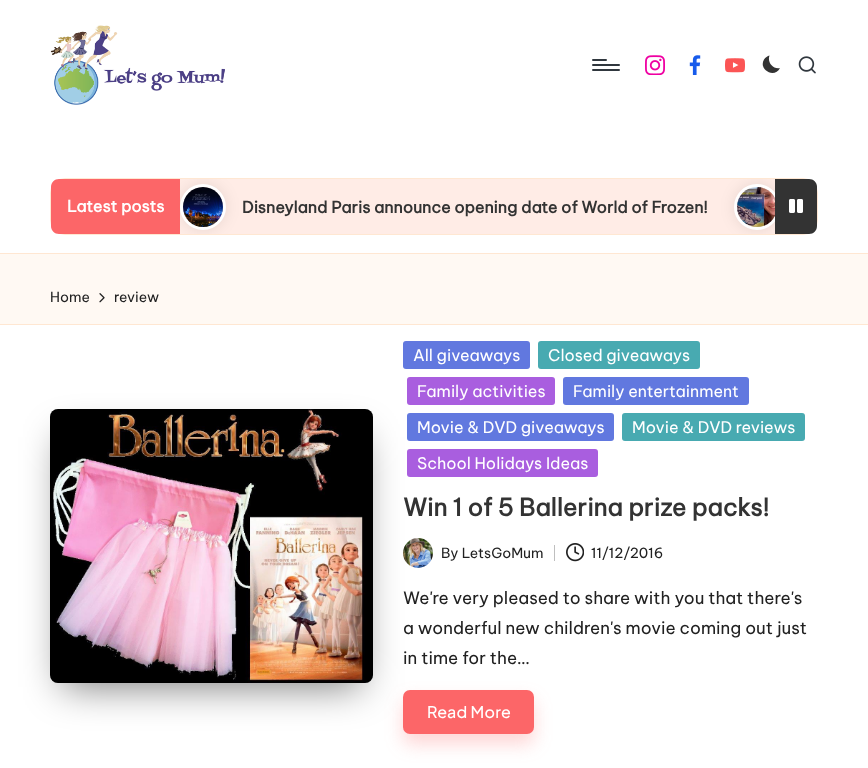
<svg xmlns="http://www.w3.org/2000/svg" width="868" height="768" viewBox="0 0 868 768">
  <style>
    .t1 { font: bold 16px Be Vietnam Pro; fill: #fff; }
    .t2 { font: bold 16px Be Vietnam Pro; fill: #333; }
    .t3 { font: 14px Be Vietnam Pro; fill: #212121; }
    .t4 { font: 16px Be Vietnam Pro; fill: #fff; }
    .t5 { font: bold 24px Be Vietnam Pro; fill: #333; }
    .t6 { font: 17px Be Vietnam Pro; fill: #212121; }
    .t7 { font: 500 16px Plus Jakarta Sans; letter-spacing: 0.25px; fill: #fff; }
  </style>
  <defs>
    <clipPath id="clip1"><rect x="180" y="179" width="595" height="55"/></clipPath>
    <clipPath id="clip2"><rect x="180" y="179" width="595" height="55"/></clipPath>
  </defs>
  <rect width="100%" height="100%" fill="#fff"/>
  <image x="50" y="25" width="175" height="80" href="images/1.png"/>
  <rect x="592" y="64" width="28" height="2" rx="1" fill="#30373e"/>
  <rect x="592" y="59" width="15" height="2" rx="1" fill="#30373e"/>
  <rect x="592" y="69" width="28" height="2" rx="1" fill="#30373e"/>
  <image x="645" y="55" width="20" height="20" href="images/2.png"/>
  <image x="689" y="55" width="12" height="20" href="images/3.png"/>
  <image x="725" y="58" width="20" height="15" href="images/4.png"/>
  <path d="M780 68C773 69.5 767 62.5 769.5 55.5C767.5 56 765.5 57.5 764 59.5C758 70.5 775 78.5 780 68Z" fill="#333"/>
  <image x="798" y="56" width="18" height="18" href="images/5.png"/>
  <rect x="50.5" y="178.5" width="767" height="56" rx="14.5" fill="none" stroke="#ffe7d2"/>
  <path d="M59 179H180V234H59C54.5 234 51 230.5 51 226V187C51 182.5 54.5 179 59 179Z" fill="#fc6668"/>
  <text x="67" y="212" class="t1">Latest posts</text>
  <rect x="180" y="179" width="595" height="55" fill="#ffece6"/>
  <rect x="0" y="253" width="868" height="1" fill="#ffe7d2"/>
  <g clip-path="url(#clip1)">
    <rect x="180" y="184" width="46" height="46" rx="23" fill="#00000017" filter="blur(7.5px)"/>
  </g>
  <circle cx="203" cy="207" r="21.5" fill="none" stroke="#fff" stroke-width="3"/>
  <image x="183" y="187" width="40" height="40" href="images/6.png"/>
  <text x="242" y="213" class="t2">Disneyland Paris announce opening date of World of Frozen!</text>
  <path d="M775 179H809C813.5 179 817 182.5 817 187V226C817 230.5 813.5 234 809 234H775Z" fill="#333"/>
  <image x="789" y="199" width="14" height="14" href="images/8.png"/>
  <g clip-path="url(#clip1)">
    <rect x="734" y="184" width="46" height="46" rx="23" fill="#00000017" filter="blur(7.5px)"/>
  </g>
  <g clip-path="url(#clip2)">
    <circle cx="757" cy="207" r="21.5" fill="none" stroke="#fff" stroke-width="3"/>
  </g>
  <image x="737" y="187" width="38" height="40" href="images/7.png"/>
  <rect x="0" y="254" width="868" height="70" fill="#fff9f3"/>
  <rect x="0" y="324" width="868" height="1" fill="#ffe7d2"/>
  <text x="50" y="302" class="t3">Home</text>
  <image x="99" y="293" width="6" height="10" href="images/9.png"/>
  <text x="114" y="302" class="t3">review</text>
  <rect x="407" y="377" width="148" height="28" rx="3" fill="#a95edf"/>
  <rect x="407" y="413" width="207" height="28" rx="3" fill="#6178df"/>
  <rect x="407" y="449" width="191" height="28" rx="3" fill="#a95edf"/>
  <image x="403" y="538" width="30" height="30" href="images/11.png"/>
  <rect x="62" y="437" width="299" height="250" fill="#00000080" filter="blur(19px)"/>
  <rect x="50" y="409" width="323" height="274" rx="8" fill="#0000002e"/>
  <image x="50" y="409" width="323" height="274" href="images/10.png"/>
  <rect x="403" y="341" width="127" height="28" rx="3" fill="#6178df"/>
  <text x="413" y="361" class="t4">All giveaways</text>
  <rect x="538" y="341" width="162" height="28" rx="3" fill="#48aab1"/>
  <text x="548" y="361" class="t4">Closed giveaways</text>
  <text x="417" y="397" class="t4">Family activities</text>
  <rect x="563" y="377" width="186" height="28" rx="3" fill="#6178df"/>
  <text x="573" y="397" class="t4">Family entertainment</text>
  <text x="417" y="433" class="t4">Movie &amp; DVD giveaways</text>
  <rect x="622" y="413" width="183" height="28" rx="3" fill="#48aab1"/>
  <text x="632" y="433" class="t4">Movie &amp; DVD reviews</text>
  <text x="417" y="469" class="t4">School Holidays Ideas</text>
  <text x="403" y="516" class="t5">Win 1 of 5 Ballerina prize packs!</text>
  <text x="441" y="558" class="t3">By LetsGoMum</text>
  <rect x="554" y="545" width="1" height="16" fill="#bfbfbf"/>
  <image x="566" y="543" width="18" height="19" href="images/12.png"/>
  <text x="591" y="558" class="t3">11/12/2016</text>
  <text x="403" y="604" class="t6">We're very pleased to share with you that there's</text>
  <text x="403" y="634" class="t6">a wonderful new children's movie coming out just</text>
  <text x="403" y="664" class="t6">in time for the…</text>
  <rect x="403" y="700" width="131" height="44" rx="7" fill="#fc666845" filter="blur(9px)"/>
  <rect x="403" y="690" width="131" height="44" rx="7" fill="#fc6668"/>
  <text x="427" y="718" class="t7">Read More</text>
</svg>
